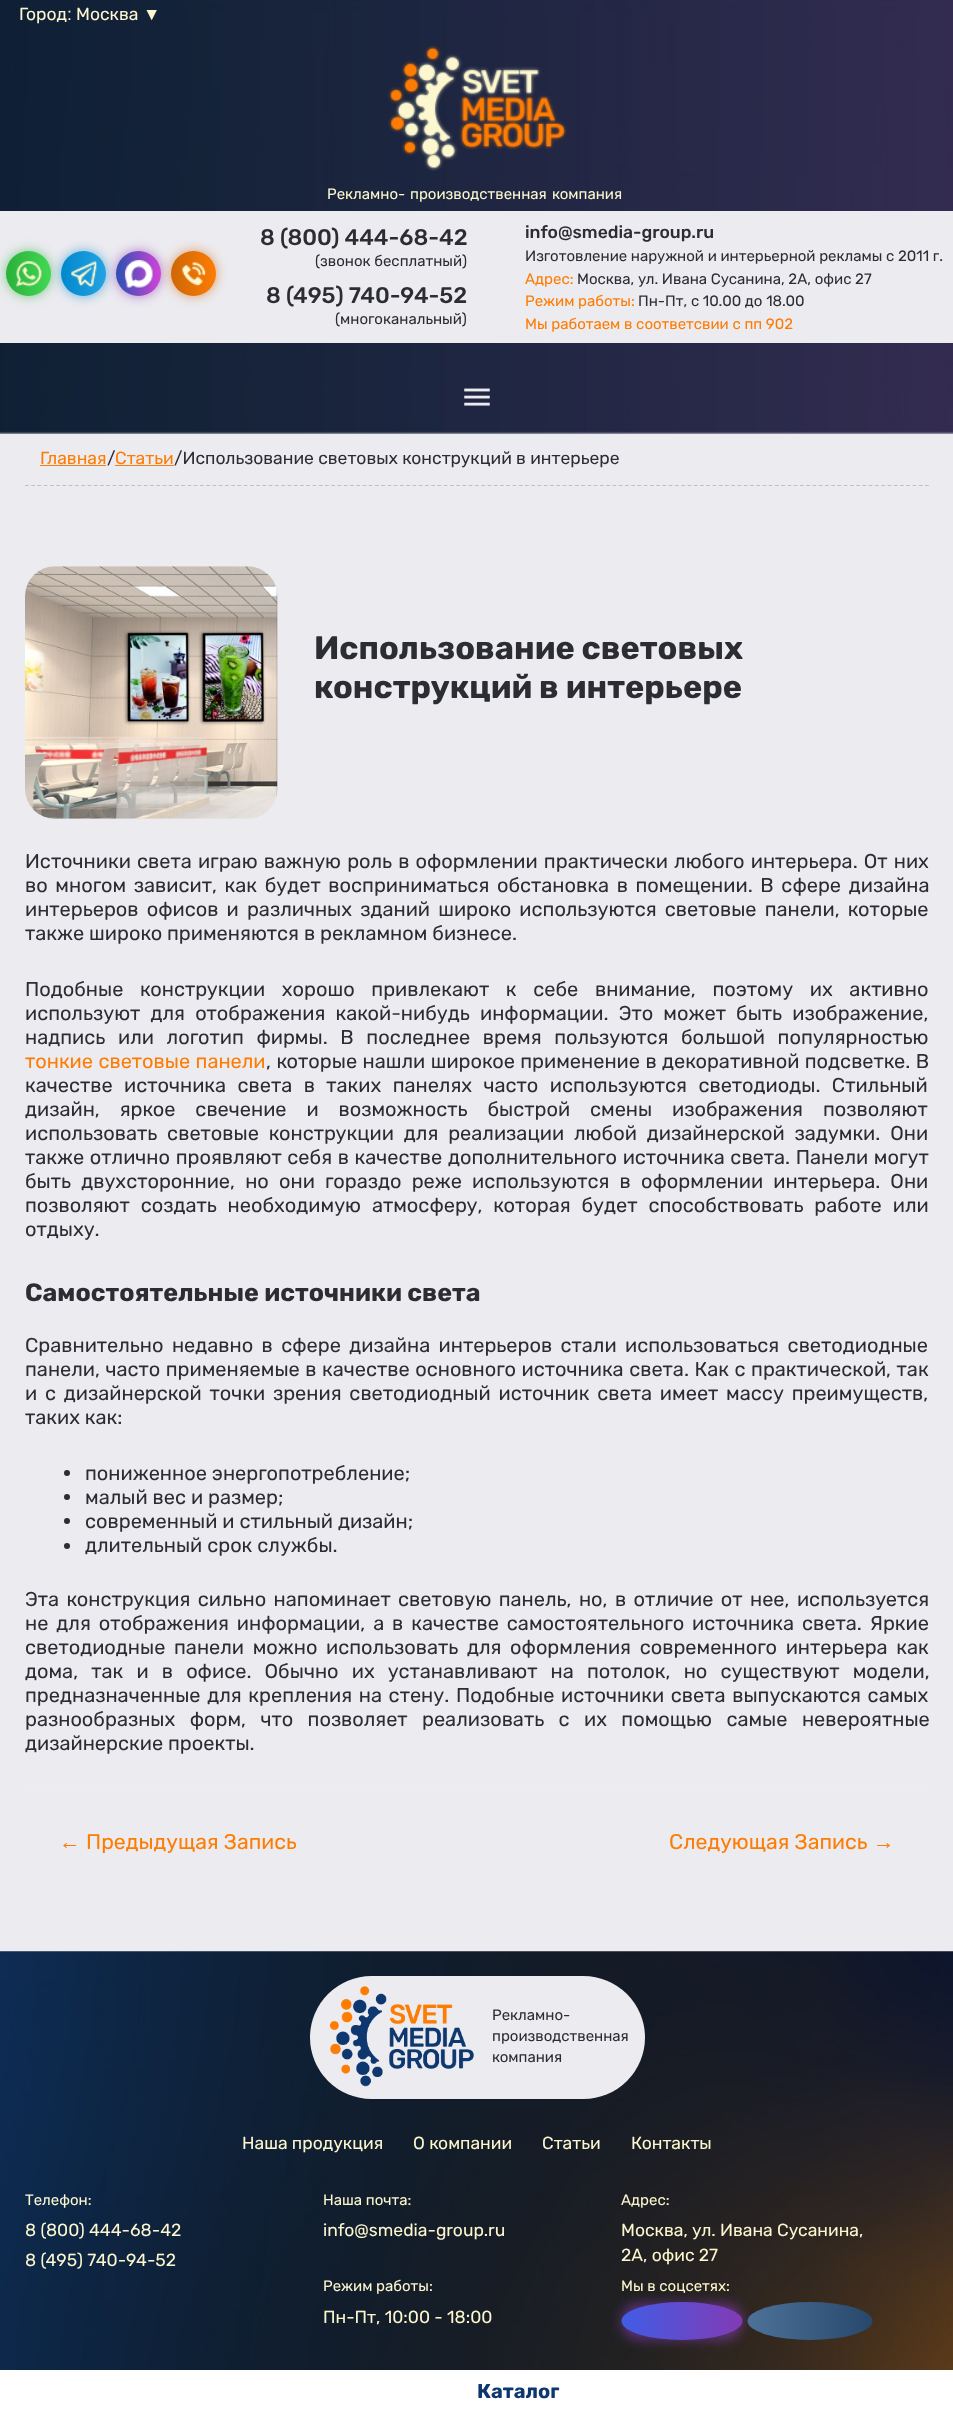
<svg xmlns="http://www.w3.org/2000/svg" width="953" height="2415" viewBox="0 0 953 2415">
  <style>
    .t1 { font: 17.5px Rubik; fill: #fcf7cf; }
    .t2 { font: 17.5px Liberation Sans; fill: #fcf7cf; }
    .t3 { font: 15px Rubik; fill: #fcf7cf; }
    .t4 { font: 500 22.5px Rubik; fill: #2c2c33; }
    .t5 { font: 15px Rubik; fill: #2c2c33; }
    .t6 { font: 500 17.5px Rubik; fill: #2c2c33; }
    .t7 { font: 15px Rubik; fill: #fd7c03; }
    .t8 { font: 17.5px Rubik; fill: #fd7c03; }
    .t9 { font: 17.5px Rubik; fill: #2c2c33; }
    .t10 { font: bold 32.5px Rubik; fill: #2c2c33; }
    .t11 { font: 20px Rubik; fill: #2c2c33; }
    .t12 { font: 20px Rubik; fill: #fd7c03; }
    .t13 { font: bold 25px Rubik; fill: #2c2c33; }
    .t14 { font: 21.25px Liberation Sans; fill: #fd7c03; }
    .t15 { font: 21.25px Rubik; fill: #fd7c03; }
    .t16 { font: bold 20px Rubik; fill: #0e376f; }
  </style>
  <defs>
    <linearGradient id="g1" gradientUnits="userSpaceOnUse" x1="6.2" y1="274" x2="51" y2="274"><stop offset="0" stop-color="#2ab13a"/><stop offset="1" stop-color="#43d854"/></linearGradient>
    <linearGradient id="g2" gradientUnits="userSpaceOnUse" x1="61" y1="274" x2="106" y2="274"><stop offset="0" stop-color="#08c"/><stop offset="1" stop-color="#24a3e3"/></linearGradient>
    <linearGradient id="g3" gradientUnits="userSpaceOnUse" x1="116" y1="274" x2="161" y2="274"><stop offset="0" stop-color="#2a51b1"/><stop offset="1" stop-color="#d443d8"/></linearGradient>
    <linearGradient id="g4" gradientUnits="userSpaceOnUse" x1="171" y1="274" x2="216" y2="274"><stop offset="0" stop-color="#ce6706"/><stop offset="1" stop-color="#fd7c03"/></linearGradient>
    <linearGradient id="g5" gradientUnits="userSpaceOnUse" x1="621" y1="2321" x2="743" y2="2321"><stop offset="0" stop-color="#405de6"/><stop offset="1" stop-color="#833ab4"/></linearGradient>
    <linearGradient id="g6" gradientUnits="userSpaceOnUse" x1="748" y1="2321" x2="873" y2="2321"><stop offset="0" stop-color="#4d7198"/><stop offset="1" stop-color="#27486b"/></linearGradient>
  </defs>
  <rect width="100%" height="100%" fill="#ecebf0"/>
  <image x="0" y="0" width="953" height="434" href="images/1.png"/>
  <text x="19" y="20" class="t1">Город</text>
  <text x="67" y="20" class="t2">:</text>
  <text x="76" y="20" class="t1">Москва</text>
  <text x="143" y="20" class="t2">▼</text>
  <image x="387" y="45" width="180" height="126" href="images/2.png"/>
  <text x="327" y="199" class="t3">Рекламно-</text>
  <text x="410" y="199" class="t3">производственная</text>
  <text x="552" y="199" class="t3">компания</text>
  <rect x="0" y="211" width="953" height="132" fill="#ecebf0"/>
  <rect x="6" y="251" width="45" height="45" rx="22.5" fill="#2ab13899" filter="blur(6px)"/>
  <circle cx="28.5" cy="273.5" r="22.5" fill="url(#g1)"/>
  <image x="16" y="261" width="26" height="26" href="images/3.png"/>
  <rect x="61" y="251" width="45" height="45" rx="22.5" fill="#0088cc99" filter="blur(6px)"/>
  <circle cx="83.5" cy="273.5" r="22.5" fill="url(#g2)"/>
  <image x="71" y="261" width="26" height="26" href="images/4.png"/>
  <rect x="116" y="251" width="45" height="45" rx="22.5" fill="#882ab199" filter="blur(6px)"/>
  <circle cx="138.5" cy="273.5" r="22.5" fill="url(#g3)"/>
  <image x="125" y="260" width="28" height="28" href="images/5.png"/>
  <rect x="171" y="251" width="45" height="45" rx="22.5" fill="#ce670699" filter="blur(6px)"/>
  <circle cx="193.5" cy="273.5" r="22.5" fill="url(#g4)"/>
  <image x="182" y="262" width="24" height="24" href="images/6.png"/>
  <text x="260" y="245" class="t4">8 (800) 444-68-42</text>
  <text x="315" y="266" class="t5">(звонок бесплатный)</text>
  <text x="266" y="303" class="t4">8 (495) 740-94-52</text>
  <text x="335" y="324" class="t5">(многоканальный)</text>
  <text x="525" y="238" class="t6">info@smedia-group.ru</text>
  <text x="525" y="261" class="t5">Изготовление наружной и интерьерной рекламы с 2011 г.</text>
  <text x="525" y="284" class="t7">Адрес:</text>
  <text x="577" y="284" class="t5">Москва, ул. Ивана Сусанина, 2А, офис 27</text>
  <text x="525" y="306" class="t7">Режим работы:</text>
  <text x="638" y="306" class="t5">Пн-Пт, с 10.00 до 18.00</text>
  <text x="525" y="329" class="t7">Мы работаем в соответсвии с пп 902</text>
  <image x="464" y="388" width="26" height="18" href="images/7.png"/>
  <path d="M25 485.5H929" fill="none" stroke="#c1c1c1" stroke-width="1.2" stroke-dasharray="3.75 2.5"/>
  <text x="40" y="464" class="t8">Главная</text>
  <rect x="40" y="465" width="66" height="1" fill="#fd7c03"/>
  <text x="107" y="464" class="t9">/</text>
  <text x="115" y="464" class="t8">Статьи</text>
  <rect x="115" y="465" width="59" height="1" fill="#fd7c03"/>
  <text x="174" y="464" class="t9">/Использование световых конструкций в интерьере</text>
  <image x="25" y="566" width="253" height="253" href="images/8.png"/>
  <text x="314" y="659" class="t10">Использование световых</text>
  <text x="314" y="698" class="t10">конструкций в интерьере</text>
  <text x="25" y="868" word-spacing="1.25" class="t11">Источники света играю важную роль в оформлении практически любого интерьера. От них</text>
  <text x="25" y="892" word-spacing="2.75" class="t11">во многом зависит, как будет восприниматься обстановка в помещении. В сфере дизайна</text>
  <text x="25" y="916" word-spacing="3.25" class="t11">интерьеров офисов и различных зданий широко используются световые панели, которые</text>
  <text x="25" y="940" class="t11">также широко применяются в рекламном бизнесе.</text>
  <text x="25" y="996" word-spacing="11.75" class="t11">Подобные конструкции хорошо привлекают к себе внимание, поэтому их активно</text>
  <text x="25" y="1020" word-spacing="5.25" class="t11">используют для отображения какой-нибудь информации. Это может быть изображение,</text>
  <text x="25" y="1044" word-spacing="7.75" class="t11">надпись или логотип фирмы. В последнее время пользуются большой популярностью</text>
  <text x="25" y="1068" word-spacing="0.5" class="t12">тонкие световые панели</text>
  <text x="266" y="1068" word-spacing="0.5" class="t11">, которые нашли широкое применение в декоративной подсветке. В</text>
  <text x="25" y="1092" word-spacing="6.5" class="t11">качестве источника света в таких панелях часто используются светодиоды. Стильный</text>
  <text x="25" y="1116" word-spacing="15" class="t11">дизайн, яркое свечение и возможность быстрой смены изображения позволяют</text>
  <text x="25" y="1140" word-spacing="5" class="t11">использовать световые конструкции для реализации любой дизайнерской задумки. Они</text>
  <text x="25" y="1164" word-spacing="0.75" class="t11">также отлично проявляют себя в качестве дополнительного источника света. Панели могут</text>
  <text x="25" y="1188" word-spacing="5.25" class="t11">быть двухсторонние, но они гораздо реже используются в оформлении интерьера. Они</text>
  <text x="25" y="1212" word-spacing="6" class="t11">позволяют создать необходимую атмосферу, которая будет способствовать работе или</text>
  <text x="25" y="1236" class="t11">отдыху.</text>
  <text x="25" y="1301" class="t13">Самостоятельные источники света</text>
  <text x="25" y="1352" word-spacing="3.5" class="t11">Сравнительно недавно в сфере дизайна интерьеров стали использоваться светодиодные</text>
  <text x="25" y="1376" word-spacing="0.6" class="t11">панели, часто применяемые в качестве основного источника света. Как с практической, так</text>
  <text x="25" y="1400" word-spacing="2.9" class="t11">и с дизайнерской точки зрения светодиодный источник света имеет массу преимуществ,</text>
  <text x="25" y="1424" class="t11">таких как:</text>
  <circle cx="67" cy="1473" r="3" fill="#2c2c33"/>
  <text x="85" y="1480" class="t11">пониженное энергопотребление;</text>
  <circle cx="67" cy="1497" r="3" fill="#2c2c33"/>
  <text x="85" y="1504" class="t11">малый вес и размер;</text>
  <circle cx="67" cy="1521" r="3" fill="#2c2c33"/>
  <text x="85" y="1528" class="t11">современный и стильный дизайн;</text>
  <circle cx="67" cy="1546" r="3" fill="#2c2c33"/>
  <text x="85" y="1552" class="t11">длительный срок службы.</text>
  <text x="25" y="1606" word-spacing="2.5" class="t11">Эта конструкция сильно напоминает световую панель, но, в отличие от нее, используется</text>
  <text x="25" y="1630" word-spacing="3" class="t11">не для отображения информации, а в качестве самостоятельного источника света. Яркие</text>
  <text x="25" y="1654" word-spacing="3.75" class="t11">светодиодные панели можно использовать для оформления современного интерьера как</text>
  <text x="25" y="1678" word-spacing="8.25" class="t11">дома, так и в офисе. Обычно их устанавливают на потолок, но существуют модели,</text>
  <text x="25" y="1702" word-spacing="1.75" class="t11">предназначенные для крепления на стену. Подобные источники света выпускаются самых</text>
  <text x="25" y="1726" word-spacing="9.5" class="t11">разнообразных форм, что позволяет реализовать с их помощью самые невероятные</text>
  <text x="25" y="1750" class="t11">дизайнерские проекты.</text>
  <rect x="25" y="1785" width="904" height="1" fill="#eee"/>
  <text x="59" y="1849" class="t14">←</text>
  <text x="86" y="1849" class="t15">Предыдущая Запись</text>
  <text x="669" y="1849" class="t15">Следующая Запись</text>
  <text x="873" y="1849" class="t14">→</text>
  <rect x="0" y="2370" width="953" height="45" fill="#fff"/>
  <text x="477" y="2398" class="t16">Каталог</text>
  <image x="0" y="1951" width="953" height="419" href="images/9.png"/>
  <rect x="310" y="1976" width="335" height="123" rx="61.5" fill="#ecebf0"/>
  <image x="330" y="1986" width="144" height="101" href="images/10.png"/>
  <text x="492" y="2020" class="t5">Рекламно-</text>
  <text x="492" y="2041" class="t5">производственная</text>
  <text x="492" y="2062" class="t5">компания</text>
  <text x="242" y="2149" class="t1">Наша продукция</text>
  <text x="413" y="2149" class="t1">О компании</text>
  <text x="542" y="2149" class="t1">Статьи</text>
  <text x="631" y="2149" class="t1">Контакты</text>
  <text x="25" y="2205" class="t3">Телефон:</text>
  <text x="25" y="2236" class="t1">8 (800) 444-68-42</text>
  <text x="25" y="2266" class="t1">8 (495) 740-94-52</text>
  <text x="323" y="2205" class="t3">Наша почта:</text>
  <text x="323" y="2236" class="t1">info@smedia-group.ru</text>
  <text x="621" y="2205" class="t3">Адрес:</text>
  <text x="621" y="2236" class="t1">Москва, ул. Ивана Сусанина,</text>
  <text x="621" y="2261" class="t1">2А, офис 27</text>
  <text x="323" y="2291" class="t3">Режим работы:</text>
  <text x="323" y="2323" class="t1">Пн-Пт, 10:00 - 18:00</text>
  <text x="621" y="2291" class="t3">Мы в соцсетях:</text>
  <rect x="621" y="2303" width="122" height="37" rx="18.5" fill="#833ab499" filter="blur(6px)"/>
  <ellipse cx="682" cy="2321" rx="60.5" ry="19" fill="url(#g5)"/>
  <ellipse cx="810" cy="2321" rx="62.5" ry="19" fill="url(#g6)"/>
</svg>
